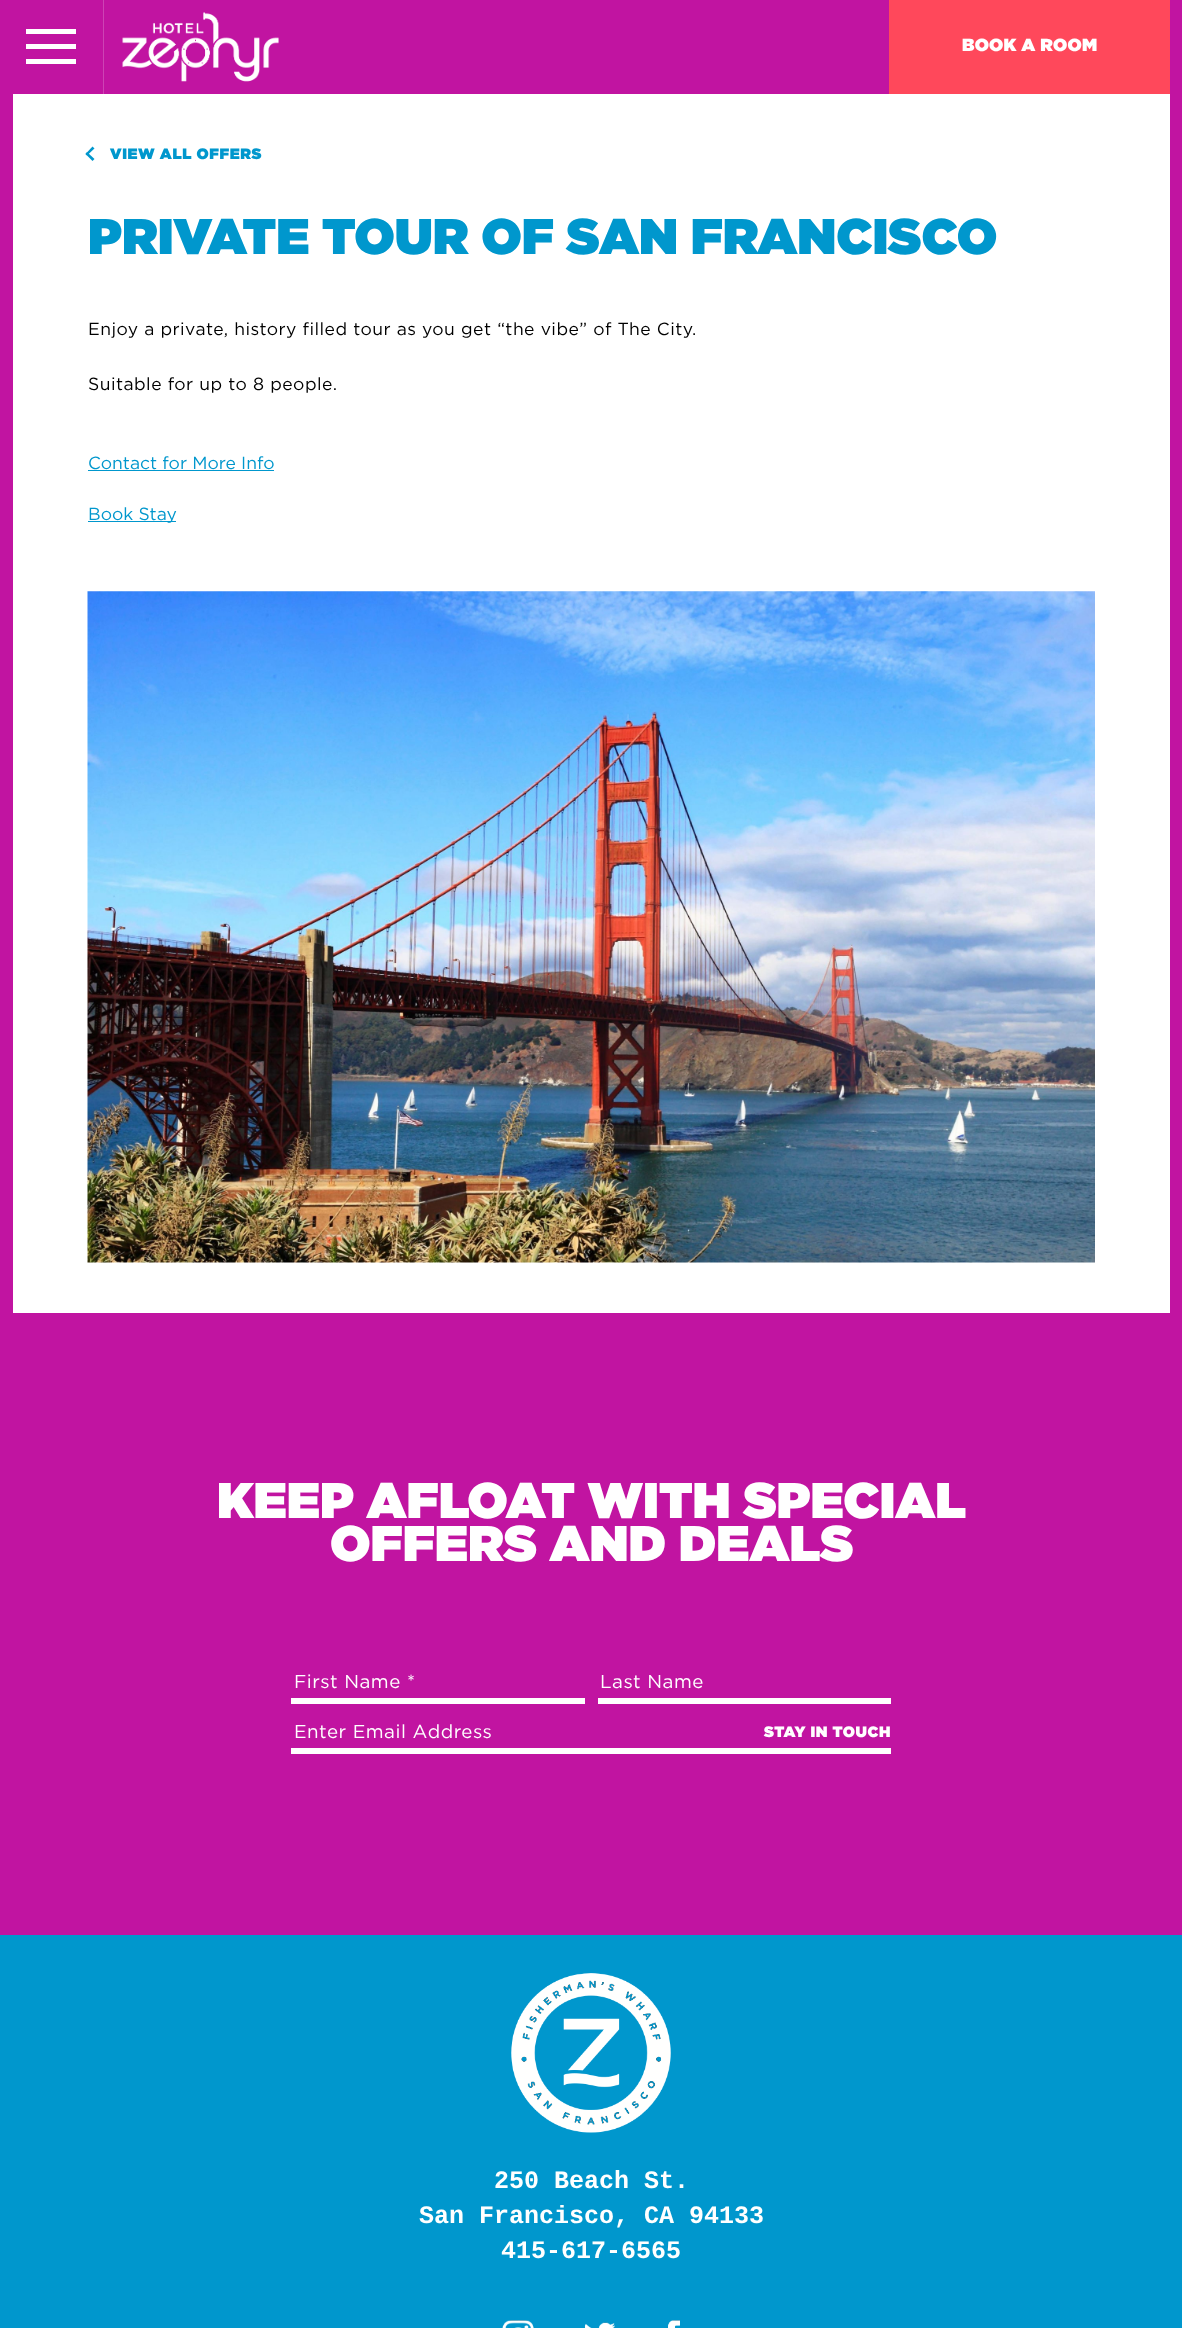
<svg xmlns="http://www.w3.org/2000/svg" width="1182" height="2328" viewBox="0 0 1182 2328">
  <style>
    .t1 { font: 17.5px Gotham; letter-spacing: 0.25px; fill: #fff; }
    .t2 { font: 15px Gotham; letter-spacing: 0.6px; fill: #0097cd; }
    .t3 { font: 50px Gotham; fill: #0097cd; }
    .t4 { font: 17.5px 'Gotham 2'; letter-spacing: 0.45px; fill: #000; }
    .t5 { font: 17.5px 'Gotham 2'; fill: #0097cd; }
    .t6 { font: 50px Gotham; fill: #fff; }
    .t7 { font: 18.75px 'Gotham 2'; letter-spacing: 0.5px; fill: #fff; }
    .t8 { font: 15px Gotham; letter-spacing: 0.6px; fill: #fff; }
    .t9 { font: bold 25px Liberation Mono; fill: #fff; }
  </style>
  <rect width="100%" height="100%" fill="#c114a1"/>
  <rect x="103" y="0" width="1" height="94" fill="#cd43b4"/>
  <rect x="26" y="44" width="50" height="5" fill="#fff"/>
  <rect x="26" y="29" width="50" height="5" fill="#fff"/>
  <rect x="26" y="59" width="50" height="5" fill="#fff"/>
  <image x="122" y="12" width="157" height="70" href="images/1.png"/>
  <rect x="889" y="0" width="281" height="94" fill="#ff485b"/>
  <text x="962" y="51" class="t1">BOOK A ROOM</text>
  <rect x="13" y="94" width="1157" height="1219" fill="#fff"/>
  <path d="M85.5 154L92.5 146.5L94.5 148.5L87 155.5Z" fill="#0097cd"/>
  <path d="M85.5 154L87 152L94.5 159L92.5 161Z" fill="#0097cd"/>
  <text x="110" y="159" class="t2">VIEW ALL OFFERS</text>
  <text x="88" y="254" class="t3">PRIVATE TOUR OF SAN FRANCISCO</text>
  <text x="88" y="335" class="t4">Enjoy a private, history filled tour as you get “the vibe” of The City.</text>
  <text x="88" y="390" class="t4">Suitable for up to 8 people.</text>
  <text x="88" y="469" class="t5">Contact for More Info</text>
  <rect x="88" y="470" width="186" height="1" fill="#0097cd"/>
  <rect x="88" y="521" width="88" height="1" fill="#0097cd"/>
  <text x="88" y="520" class="t5">Book Stay</text>
  <image x="87" y="591" width="1008" height="672" href="images/2.png"/>
  <text x="217" y="1518" class="t6">KEEP AFLOAT WITH SPECIAL</text>
  <text x="330" y="1561" class="t6">OFFERS AND DEALS</text>
  <rect x="291" y="1698" width="294" height="6" fill="#fff"/>
  <text x="294" y="1688" class="t7">First Name *</text>
  <rect x="598" y="1698" width="293" height="6" fill="#fff"/>
  <text x="600" y="1688" class="t7">Last Name</text>
  <rect x="291" y="1748" width="600" height="6" fill="#fff"/>
  <text x="294" y="1738" class="t7">Enter Email Address</text>
  <text x="764" y="1737" class="t8">STAY IN TOUCH</text>
  <rect x="0" y="1935" width="1182" height="393" fill="#0097cd"/>
  <image x="511" y="1973" width="160" height="160" href="images/3.png"/>
  <text x="494" y="2188" class="t9">250 Beach St.</text>
  <text x="419" y="2223" class="t9">San Francisco, CA 94133</text>
  <text x="501" y="2258" class="t9">415-617-6565</text>
  <image x="502" y="2320" width="32" height="8" href="images/4.png"/>
  <image x="584" y="2322" width="31" height="6" href="images/5.png"/>
  <image x="668" y="2320" width="12" height="8" href="images/6.png"/>
</svg>
